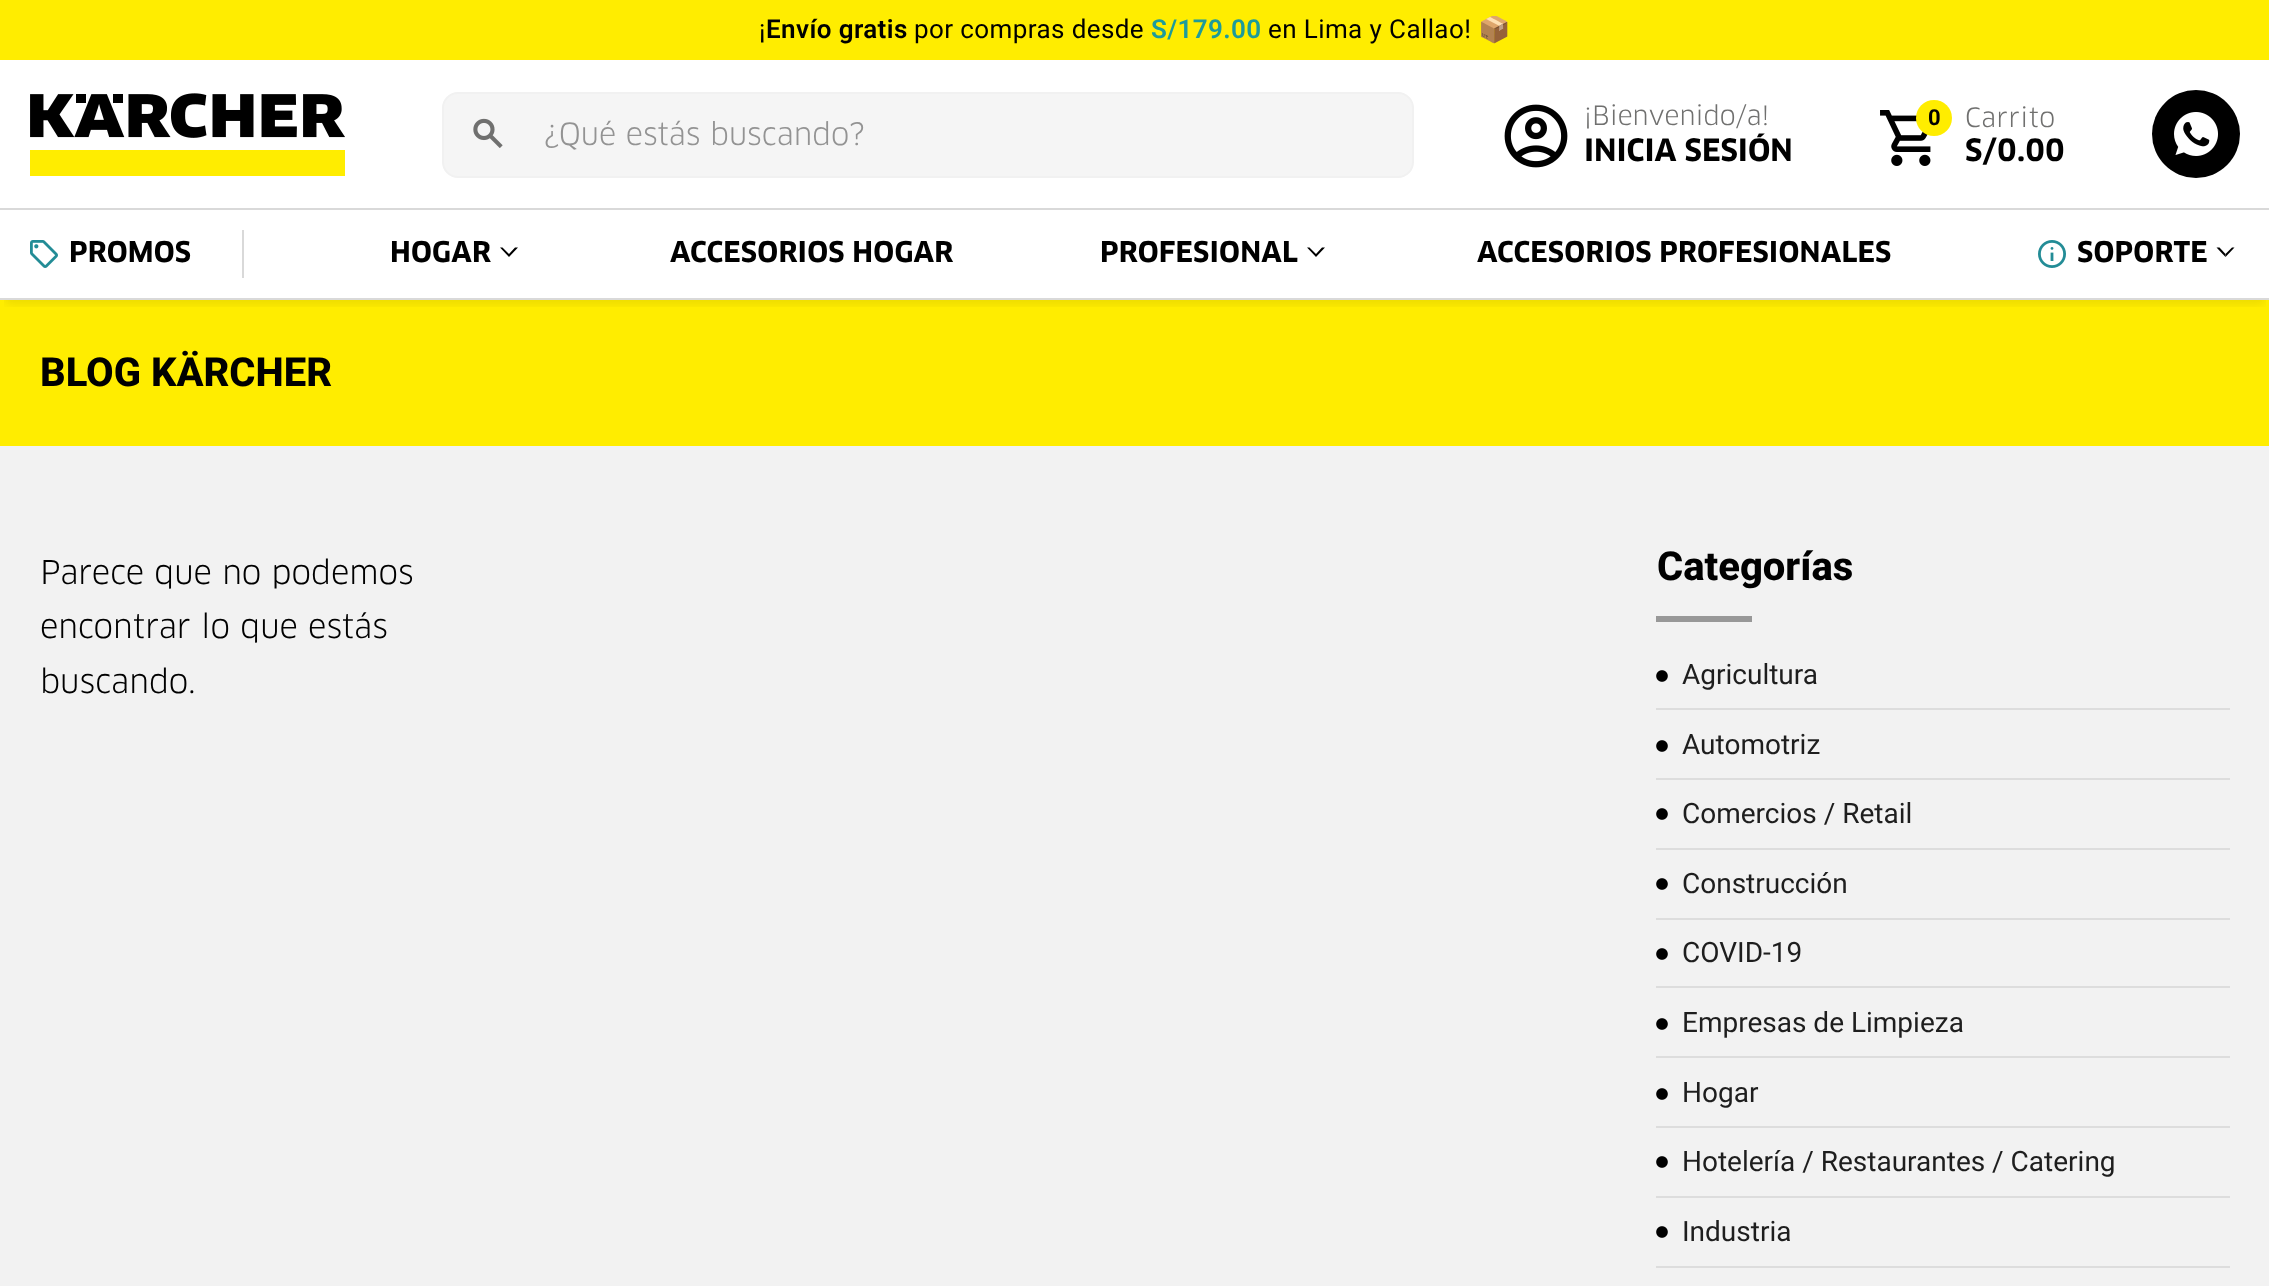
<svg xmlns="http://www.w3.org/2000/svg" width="2269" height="1286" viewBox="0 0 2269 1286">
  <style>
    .t1 { font: 26px Roboto; letter-spacing: 0.4px; fill: #000; }
    .t2 { font: 600 26px Roboto; letter-spacing: 0.4px; fill: #000; }
    .t3 { font: 600 26px Roboto; letter-spacing: 0.4px; fill: #1d9b9b; }
    .t4 { font: 26px Noto Color Emoji; letter-spacing: 0.4px; fill: #000; }
    .t5 { font: 30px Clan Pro; fill: #939393; }
    .t6 { font: 26px Clan Pro; fill: #70706f; }
    .t7 { font: bold 30px Clan Pro; fill: #000; }
    .t8 { font: bold 22px Roboto; fill: #000; }
    .t9 { font: 26px Clan Pro; letter-spacing: 0.5px; fill: #70706f; }
    .t10 { font: bold 30px Clan Pro; letter-spacing: 0.5px; fill: #000; }
    .t11 { font: bold 28px Clan Pro; letter-spacing: 0.2px; fill: #000; }
    .t12 { font: 800 40px Roboto; fill: #000; }
    .t13 { font: 32px Clan Pro; fill: #000; }
    .t14 { font: 28px Roboto; fill: #1e1e1e; }
  </style>
  <defs>
    <clipPath id="clip1"><rect x="40" y="16" width="2190" height="28"/></clipPath>
    <clipPath id="clip2"><rect x="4" y="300" width="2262" height="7"/></clipPath>
  </defs>
  <rect width="100%" height="100%" fill="#fff"/>
  <rect x="0" y="0" width="2269" height="60" fill="#ffed00"/>
  <text x="759" y="38" class="t1">¡</text>
  <text x="766" y="38" class="t2">Envío gratis</text>
  <text x="914" y="38" class="t1">por compras desde</text>
  <text x="1151" y="38" class="t3">S/179.00</text>
  <text x="1268" y="38" class="t1">en Lima y Callao!</text>
  <g clip-path="url(#clip1)">
    <text x="1478" y="38" class="t4">📦</text>
  </g>
  <image x="30" y="93" width="315" height="83" href="images/1.png"/>
  <rect x="443" y="93" width="970" height="84" rx="15" fill="#f5f5f5" stroke="#f1f1f1" stroke-width="2"/>
  <image x="473" y="118" width="30" height="30" href="images/2.png"/>
  <text x="544" y="145" class="t5">¿Qué estás buscando?</text>
  <image x="1504" y="104" width="64" height="64" href="images/3.png"/>
  <text x="1584" y="125" class="t6">¡Bienvenido/a!</text>
  <text x="1584" y="161" class="t7">INICIA SESIÓN</text>
  <image x="1880" y="110" width="51" height="56" href="images/4.png"/>
  <circle cx="1934" cy="118" r="18" fill="#ffed00"/>
  <text x="1928" y="125" class="t8">0</text>
  <text x="1965" y="127" class="t9">Carrito</text>
  <text x="1965" y="161" class="t10">S/0.00</text>
  <circle cx="2196" cy="134" r="44" fill="#000"/>
  <image x="2174" y="112" width="44" height="44" href="images/5.png"/>
  <rect x="0" y="300" width="2269" height="146" fill="#ffed00"/>
  <g clip-path="url(#clip2)">
    <rect x="6" y="224" width="2258" height="80" fill="#00000014" filter="blur(5px)"/>
  </g>
  <rect x="0" y="208" width="2269" height="2" fill="#d9d9d9"/>
  <rect x="0" y="298" width="2269" height="2" fill="#d9d9d9"/>
  <rect x="242" y="230" width="2" height="48" fill="#d9d9d9"/>
  <image x="30" y="240" width="28" height="28" href="images/6.png"/>
  <text x="69" y="262" class="t11">PROMOS</text>
  <text x="390" y="262" class="t11">HOGAR</text>
  <path d="M518 247.5L509 257V254L515 247.5ZM509 257L500 247.5H502.5L509 254Z" fill="#000"/>
  <text x="670" y="262" class="t11">ACCESORIOS HOGAR</text>
  <text x="1100" y="262" class="t11">PROFESIONAL</text>
  <path d="M1325 247.5L1316 257V254L1322 247.5ZM1316 257L1307 247.5H1309.5L1316 254Z" fill="#000"/>
  <text x="1477" y="262" class="t11">ACCESORIOS PROFESIONALES</text>
  <image x="2038" y="240" width="28" height="28" href="images/7.png"/>
  <text x="2077" y="262" class="t11">SOPORTE</text>
  <path d="M2234.5 247.5L2225.5 257V254L2232 247.5Z" fill="#000"/>
  <path d="M2225.5 257L2216.5 247.5H2219.5L2225.5 254Z" fill="#000"/>
  <text x="40" y="386" class="t12">BLOG KÄRCHER</text>
  <rect x="0" y="446" width="2269" height="840" fill="#f2f2f2"/>
  <text x="40" y="584" class="t13">Parece que no podemos</text>
  <text x="40" y="638" class="t13">encontrar lo que estás</text>
  <text x="40" y="693" class="t13">buscando.</text>
  <text x="1657" y="580" class="t12">Categorías</text>
  <rect x="1656" y="616" width="96" height="6" fill="#989898"/>
  <image x="1656" y="670" width="12" height="12" href="images/8.png"/>
  <text x="1682" y="684" class="t14">Agricultura</text>
  <rect x="1656" y="708" width="574" height="2" fill="#ddd"/>
  <image x="1656" y="740" width="12" height="12" href="images/8.png"/>
  <text x="1682" y="754" class="t14">Automotriz</text>
  <rect x="1656" y="778" width="574" height="2" fill="#ddd"/>
  <image x="1656" y="808" width="12" height="12" href="images/8.png"/>
  <text x="1682" y="823" class="t14">Comercios / Retail</text>
  <rect x="1656" y="848" width="574" height="2" fill="#ddd"/>
  <image x="1656" y="878" width="12" height="12" href="images/8.png"/>
  <text x="1682" y="893" class="t14">Construcción</text>
  <rect x="1656" y="918" width="574" height="2" fill="#ddd"/>
  <image x="1656" y="948" width="12" height="12" href="images/8.png"/>
  <text x="1682" y="962" class="t14">COVID-19</text>
  <rect x="1656" y="986" width="574" height="2" fill="#ddd"/>
  <image x="1656" y="1018" width="12" height="12" href="images/8.png"/>
  <text x="1682" y="1032" class="t14">Empresas de Limpieza</text>
  <rect x="1656" y="1056" width="574" height="2" fill="#ddd"/>
  <image x="1656" y="1088" width="12" height="12" href="images/8.png"/>
  <text x="1682" y="1102" class="t14">Hogar</text>
  <rect x="1656" y="1126" width="574" height="2" fill="#ddd"/>
  <image x="1656" y="1156" width="12" height="12" href="images/8.png"/>
  <text x="1682" y="1171" class="t14">Hotelería / Restaurantes / Catering</text>
  <rect x="1656" y="1196" width="574" height="2" fill="#ddd"/>
  <image x="1656" y="1226" width="12" height="12" href="images/8.png"/>
  <text x="1682" y="1241" class="t14">Industria</text>
  <rect x="1656" y="1266" width="574" height="2" fill="#ddd"/>
</svg>
